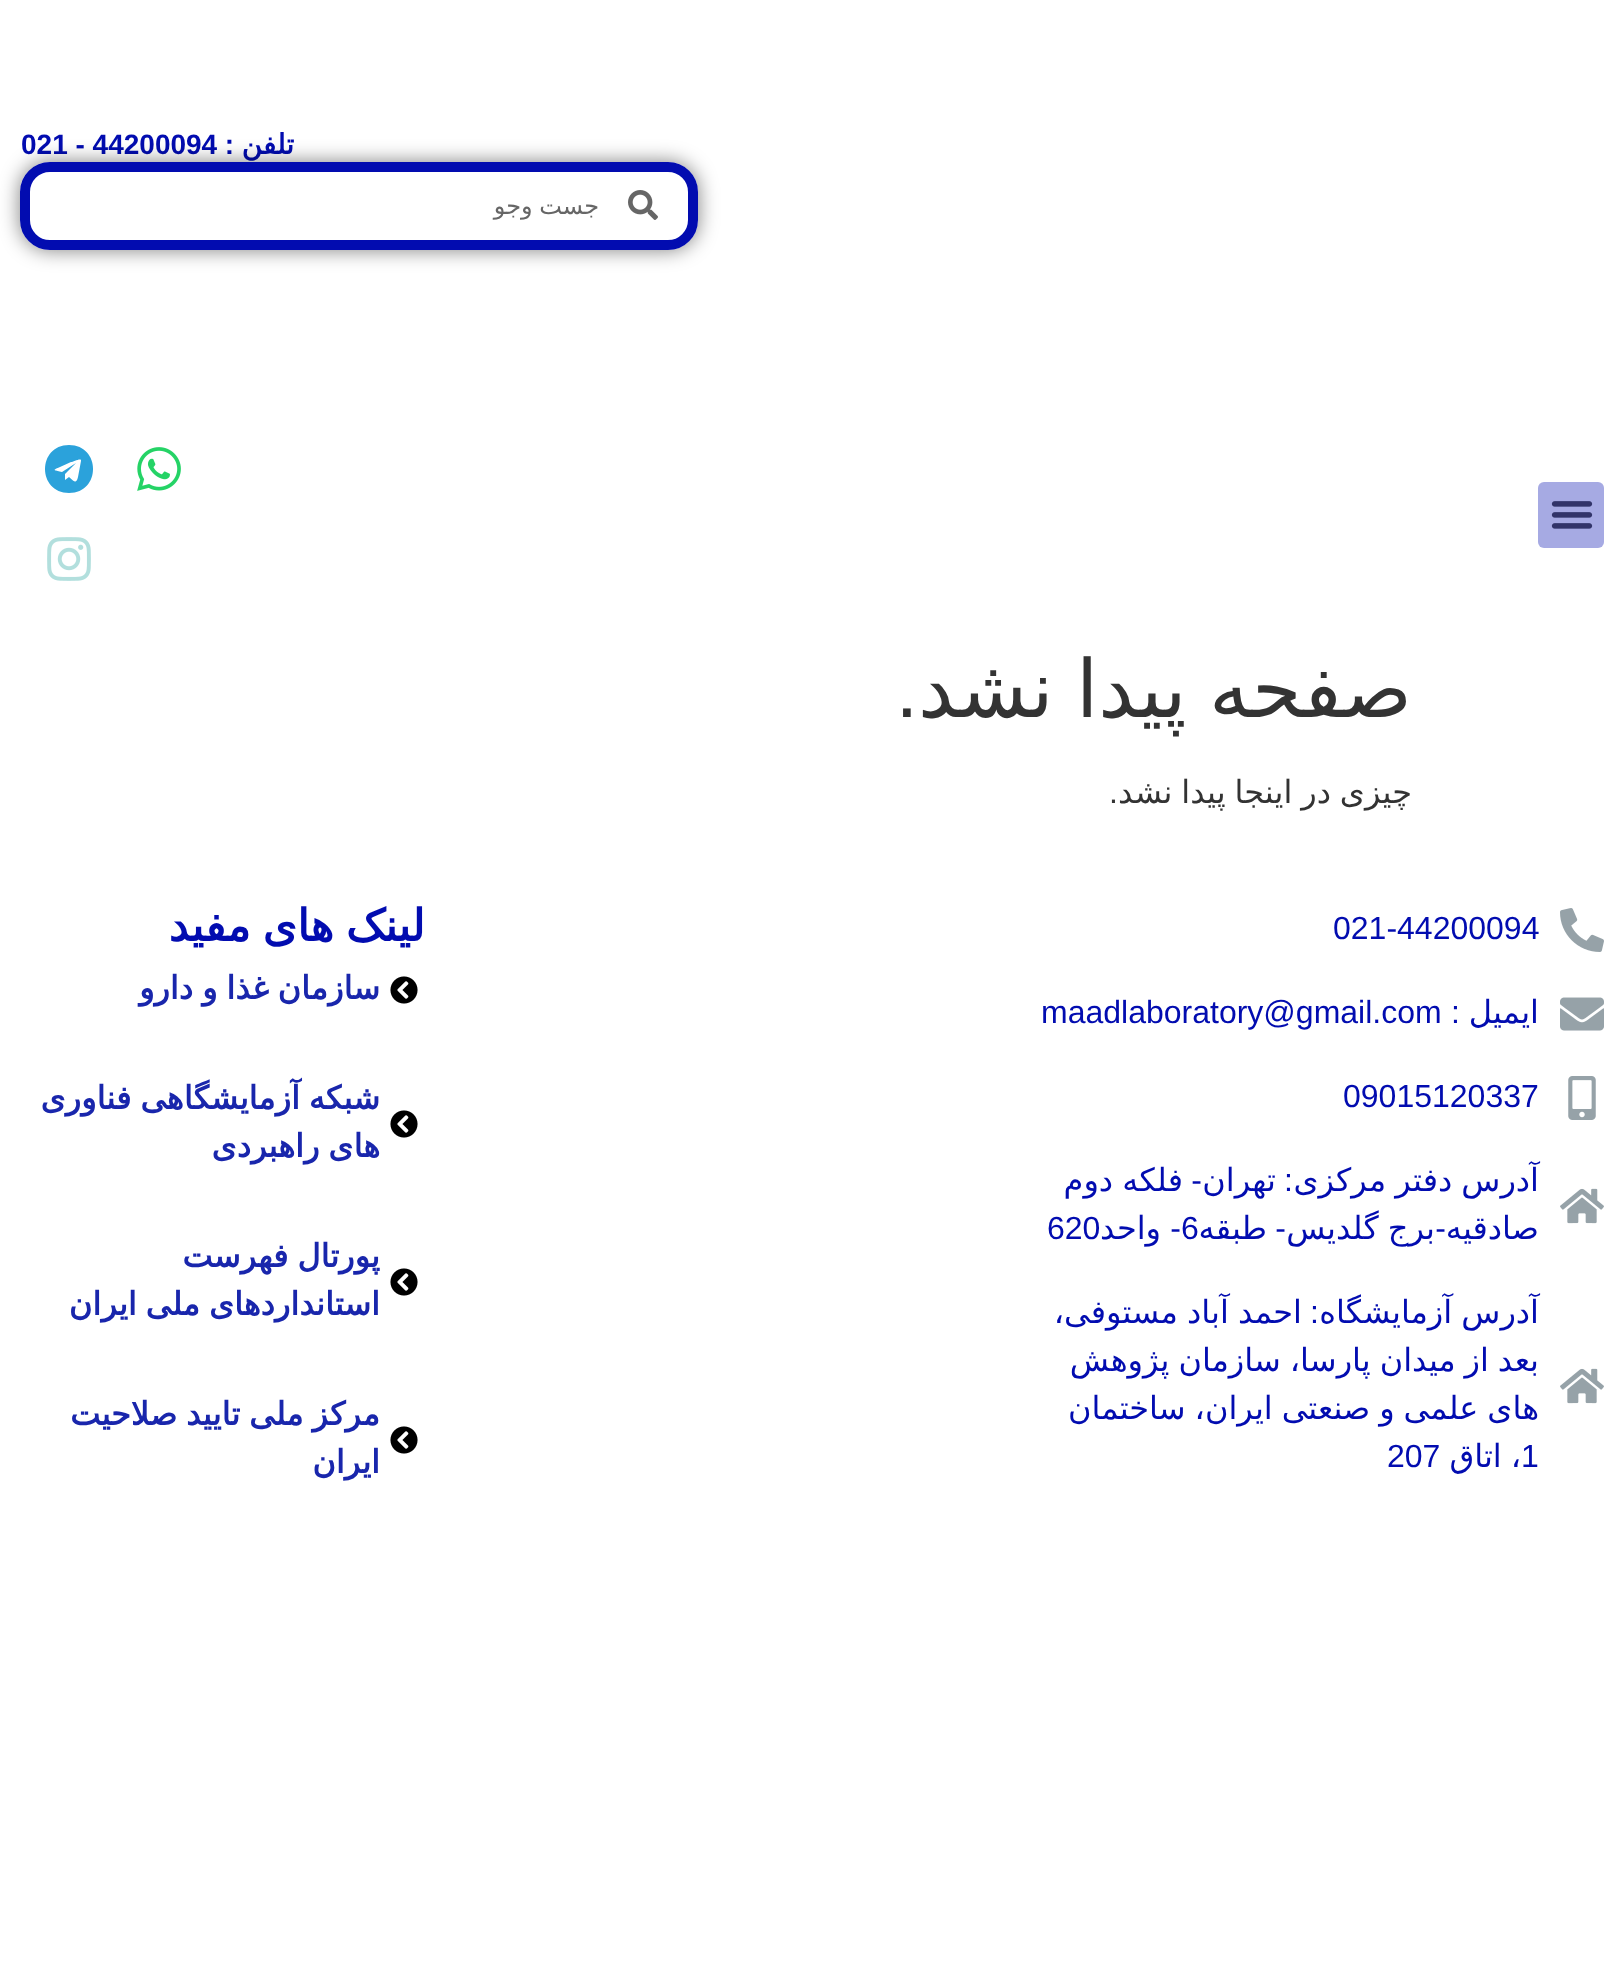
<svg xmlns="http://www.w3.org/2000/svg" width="1624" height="1972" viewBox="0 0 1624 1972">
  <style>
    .t1 { font: bold 28px DejaVu Sans; direction: rtl; fill: #020cb0; }
    .t2 { font: bold 28px Liberation Sans; direction: rtl; fill: #020cb0; }
    .t3 { font: bold 28px Liberation Sans; fill: #020cb0; }
    .t4 { font: 24px DejaVu Sans; direction: rtl; fill: #666; }
    .t5 { font: 80px DejaVu Sans; direction: rtl; fill: #333; }
    .t6 { font: 80px Liberation Sans; direction: rtl; fill: #333; }
    .t7 { font: 32px DejaVu Sans; direction: rtl; fill: #333; }
    .t8 { font: 32px Liberation Sans; direction: rtl; fill: #333; }
    .t9 { font: 32px Liberation Sans; fill: #020cb0; }
    .t10 { font: 32px DejaVu Sans; direction: rtl; fill: #020cb0; }
    .t11 { font: 32px Liberation Sans; direction: rtl; fill: #020cb0; }
    .t12 { font: bold 44px DejaVu Sans; direction: rtl; fill: #020cb0; }
    .t13 { font: bold 32px DejaVu Sans; direction: rtl; fill: #1926ac; }
  </style>
  <defs>
    <clipPath id="clip1"><path d="M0 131H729V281H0ZM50 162H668C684.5 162 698 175.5 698 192V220C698 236.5 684.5 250 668 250H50C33.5 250 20 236.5 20 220V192C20 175.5 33.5 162 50 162Z" clip-rule="evenodd"/></clipPath>
  </defs>
  <rect width="100%" height="100%" fill="#fff"/>
  <text x="294" y="154" class="t1">تلفن</text>
  <text x="234" y="154" class="t2">:</text>
  <text x="21" y="154" class="t3">021 - 44200094</text>
  <g clip-path="url(#clip1)">
    <rect x="20" y="162" width="678" height="88" rx="30" fill="#00000080" filter="blur(10px)"/>
  </g>
  <rect x="25" y="167" width="668" height="78" rx="25" fill="none" stroke="#020cb0" stroke-width="10"/>
  <image x="628" y="190" width="30" height="30" href="images/1.png"/>
  <text x="599" y="214" word-spacing="-1" class="t4">جست وجو</text>
  <rect x="1538" y="482" width="66" height="66" rx="6" fill="#a6aae3"/>
  <image x="1551" y="501" width="42" height="28" href="images/2.png"/>
  <image x="137" y="447" width="44" height="44" href="images/3.png"/>
  <path d="M69 445C37 445 37 493 69 493C101 493 101 445 69 445ZM81 461L78 477C76 485 74 481 69 477L65 480V474L76 463L62 472C56 470 50 471 60 467L71 462C73 462 82 457 81 461Z" fill="#2ba2db"/>
  <image x="47" y="537" width="44" height="44" href="images/4.png"/>
  <text x="1412" y="717" word-spacing="-3" class="t5">صفحه پیدا نشد</text>
  <text x="918" y="717" class="t6">.</text>
  <text x="1412" y="803" word-spacing="-1.25" class="t7">چیزی در اینجا پیدا نشد</text>
  <text x="1118" y="803" class="t8">.</text>
  <image x="1560" y="908" width="44" height="44" href="images/5.png"/>
  <text x="1333" y="939" class="t9">021-44200094</text>
  <image x="1560" y="997" width="44" height="34" href="images/6.png"/>
  <text x="1539" y="1023" class="t10">ایمیل</text>
  <text x="1460" y="1023" class="t11">:</text>
  <text x="1041" y="1023" class="t9">maadlaboratory@gmail.com</text>
  <image x="1568" y="1076" width="28" height="44" href="images/7.png"/>
  <text x="1343" y="1107" class="t9">09015120337</text>
  <image x="1560" y="1188" width="44" height="36" href="images/8.png"/>
  <text x="1539" y="1191" word-spacing="-1" class="t10">آدرس دفتر مرکزی</text>
  <text x="1293" y="1191" class="t11">:</text>
  <text x="1276" y="1191" class="t10">تهران</text>
  <text x="1202" y="1191" class="t11">-</text>
  <text x="1183" y="1191" word-spacing="-1" class="t10">فلکه دوم</text>
  <text x="1539" y="1239" class="t10">صادقیه</text>
  <text x="1446" y="1239" class="t11">-</text>
  <text x="1435" y="1239" word-spacing="-1" class="t10">برج گلدیس</text>
  <text x="1286" y="1239" class="t11">-</text>
  <text x="1267" y="1239" class="t10">طبقه</text>
  <text x="1181" y="1239" class="t9">6</text>
  <text x="1181" y="1239" class="t11">-</text>
  <text x="1161" y="1239" class="t10">واحد</text>
  <text x="1047" y="1239" class="t9">620</text>
  <image x="1560" y="1368" width="44" height="36" href="images/8.png"/>
  <text x="1539" y="1323" word-spacing="-1" class="t10">آدرس آزمایشگاه</text>
  <text x="1319" y="1323" class="t11">:</text>
  <text x="1302" y="1323" word-spacing="-1" class="t10">احمد آباد مستوفی،</text>
  <text x="1539" y="1371" word-spacing="-1.25" class="t10">بعد از میدان پارسا، سازمان پژوهش</text>
  <text x="1539" y="1419" word-spacing="-1.25" class="t10">های علمی و صنعتی ایران، ساختمان</text>
  <text x="1521" y="1467" class="t9">1</text>
  <text x="1521" y="1467" word-spacing="-1.25" class="t10">، اتاق</text>
  <text x="1387" y="1467" class="t9">207</text>
  <text x="425" y="941" word-spacing="-2" class="t12">لینک های مفید</text>
  <image x="390" y="976" width="28" height="28" href="images/9.png"/>
  <text x="380" y="999" word-spacing="-1.25" class="t13">سازمان غذا و دارو</text>
  <image x="390" y="1110" width="28" height="28" href="images/9.png"/>
  <text x="380" y="1109" word-spacing="-1.25" class="t13">شبکه آزمایشگاهی فناوری</text>
  <text x="380" y="1157" word-spacing="-1.25" class="t13">های راهبردی</text>
  <image x="390" y="1268" width="28" height="28" href="images/9.png"/>
  <text x="380" y="1267" word-spacing="-1.25" class="t13">پورتال فهرست</text>
  <text x="380" y="1315" word-spacing="-1.25" class="t13">استانداردهای ملی ایران</text>
  <image x="390" y="1426" width="28" height="28" href="images/9.png"/>
  <text x="380" y="1425" word-spacing="-1.25" class="t13">مرکز ملی تایید صلاحیت</text>
  <text x="380" y="1473" class="t13">ایران</text>
</svg>
